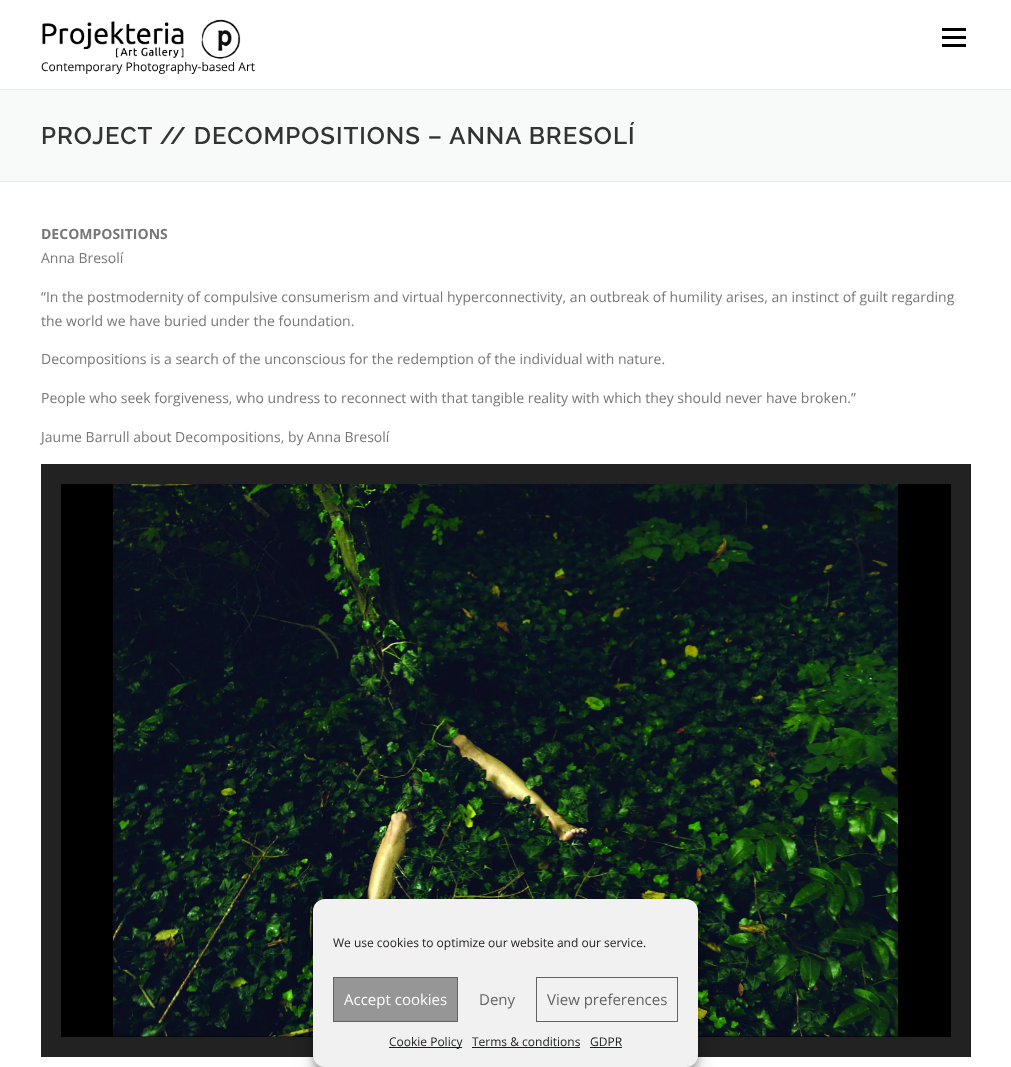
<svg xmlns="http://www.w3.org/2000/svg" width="1011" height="1067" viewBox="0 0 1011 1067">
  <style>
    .t1 { font: 12px Open Sans; fill: #000; }
    .t2 { font: 600 24px Raleway; letter-spacing: 1px; fill: #333; }
    .t3 { font: bold 14px Open Sans; fill: #777; }
    .t4 { font: 14px Open Sans; fill: #777; }
    .t5 { font: 12px Open Sans; fill: #191e23; }
    .t6 { font: 15px Open Sans; fill: #fff; }
    .t7 { font: 15px Open Sans; fill: #636363; }
  </style>
  <rect width="100%" height="100%" fill="#fff"/>
  <rect x="942" y="36" width="24" height="3" fill="#000"/>
  <rect x="942" y="28" width="24" height="3" fill="#000"/>
  <rect x="942" y="44" width="24" height="3" fill="#000"/>
  <image x="42" y="19" width="199" height="40" href="images/1.png"/>
  <text x="41" y="71" class="t1">Contemporary Photography-based Art</text>
  <rect x="0" y="90" width="1011" height="91" fill="#f8f9f9"/>
  <rect x="0" y="89" width="1011" height="1" fill="#e9e9e9"/>
  <rect x="0" y="181" width="1011" height="1" fill="#e9e9e9"/>
  <text x="41" y="144" class="t2">PROJECT // DECOMPOSITIONS – ANNA BRESOLÍ</text>
  <text x="41" y="239" class="t3">DECOMPOSITIONS</text>
  <text x="41" y="263" class="t4">Anna Bresolí</text>
  <text x="41" y="302" class="t4">“In the postmodernity of compulsive consumerism and virtual hyperconnectivity, an outbreak of humility arises, an instinct of guilt regarding</text>
  <text x="41" y="326" class="t4">the world we have buried under the foundation.</text>
  <text x="41" y="364" class="t4">Decompositions is a search of the unconscious for the redemption of the individual with nature.</text>
  <text x="41" y="403" class="t4">People who seek forgiveness, who undress to reconnect with that tangible reality with which they should never have broken.”</text>
  <text x="41" y="442" class="t4">Jaume Barrull about Decompositions, by Anna Bresolí</text>
  <rect x="51" y="474" width="910" height="573" fill="none" stroke="#222" stroke-width="20"/>
  <rect x="61" y="484" width="890" height="553" fill="#000"/>
  <image x="113" y="484" width="785" height="553" href="images/2.png"/>
  <rect x="313" y="905" width="385" height="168" rx="12" fill="#0000003b" filter="blur(3px)"/>
  <rect x="313" y="909" width="385" height="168" rx="12" fill="#00000030" filter="blur(10px)"/>
  <rect x="313" y="899" width="385" height="168" rx="12" fill="#f1f1f1"/>
  <text x="333" y="947" class="t5">We use cookies to optimize our website and our service.</text>
  <rect x="333.5" y="977.5" width="124" height="44" fill="#969696" stroke="#636363"/>
  <text x="344" y="1005" class="t6">Accept cookies</text>
  <text x="479" y="1005" class="t7">Deny</text>
  <rect x="536.5" y="977.5" width="141" height="44" fill="none" stroke="#636363"/>
  <text x="547" y="1005" class="t7">View preferences</text>
  <rect x="389" y="1047" width="73" height="1" fill="#191e23"/>
  <text x="389" y="1046" class="t5">Cookie Policy</text>
  <text x="472" y="1046" class="t5">Terms &amp; conditions</text>
  <rect x="472" y="1047" width="108" height="1" fill="#191e23"/>
  <text x="590" y="1046" class="t5">GDPR</text>
  <rect x="590" y="1047" width="32" height="1" fill="#191e23"/>
</svg>
